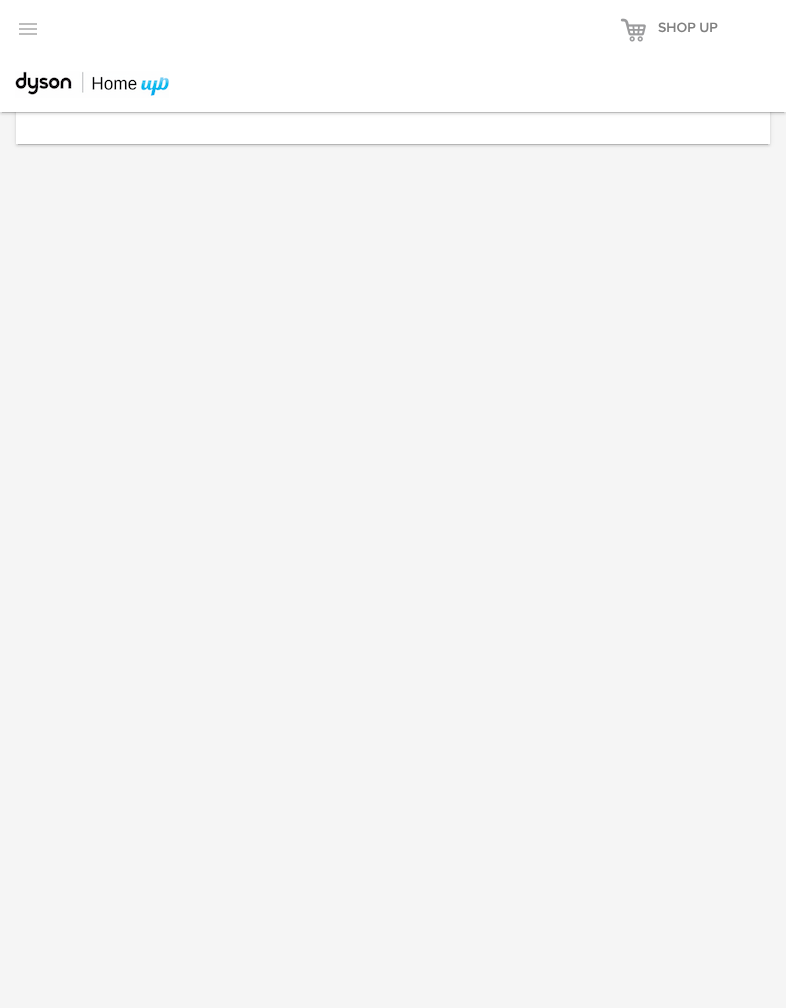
<svg xmlns="http://www.w3.org/2000/svg" width="786" height="1008" viewBox="0 0 786 1008">
  <style>
    .t1 { font: 600 14px Proxima Nova; fill: #808080; }
  </style>
  <rect width="100%" height="100%" fill="#f5f5f5"/>
  <rect x="16" y="73" width="754" height="72" fill="#00000014" filter="blur(2.5px)"/>
  <rect x="18" y="77" width="750" height="68" fill="#00000024" filter="blur(0.5px)"/>
  <rect x="16" y="74" width="754" height="72" fill="#0000001a" filter="blur(1px)"/>
  <rect x="16" y="112" width="754" height="32" fill="#fff"/>
  <rect x="0" y="1" width="786" height="112" fill="#00000014" filter="blur(2.5px)"/>
  <rect x="2" y="5" width="782" height="108" fill="#00000024" filter="blur(0.5px)"/>
  <rect x="0" y="2" width="786" height="112" fill="#0000001a" filter="blur(1px)"/>
  <rect x="0" y="0" width="786" height="112" fill="#fff"/>
  <image x="19" y="23" width="18" height="12" href="images/1.png"/>
  <image x="620" y="18" width="26" height="24" href="images/2.png"/>
  <text x="658" y="32" class="t1">SHOP UP</text>
  <image x="15" y="71" width="154" height="27" href="images/3.png"/>
</svg>
